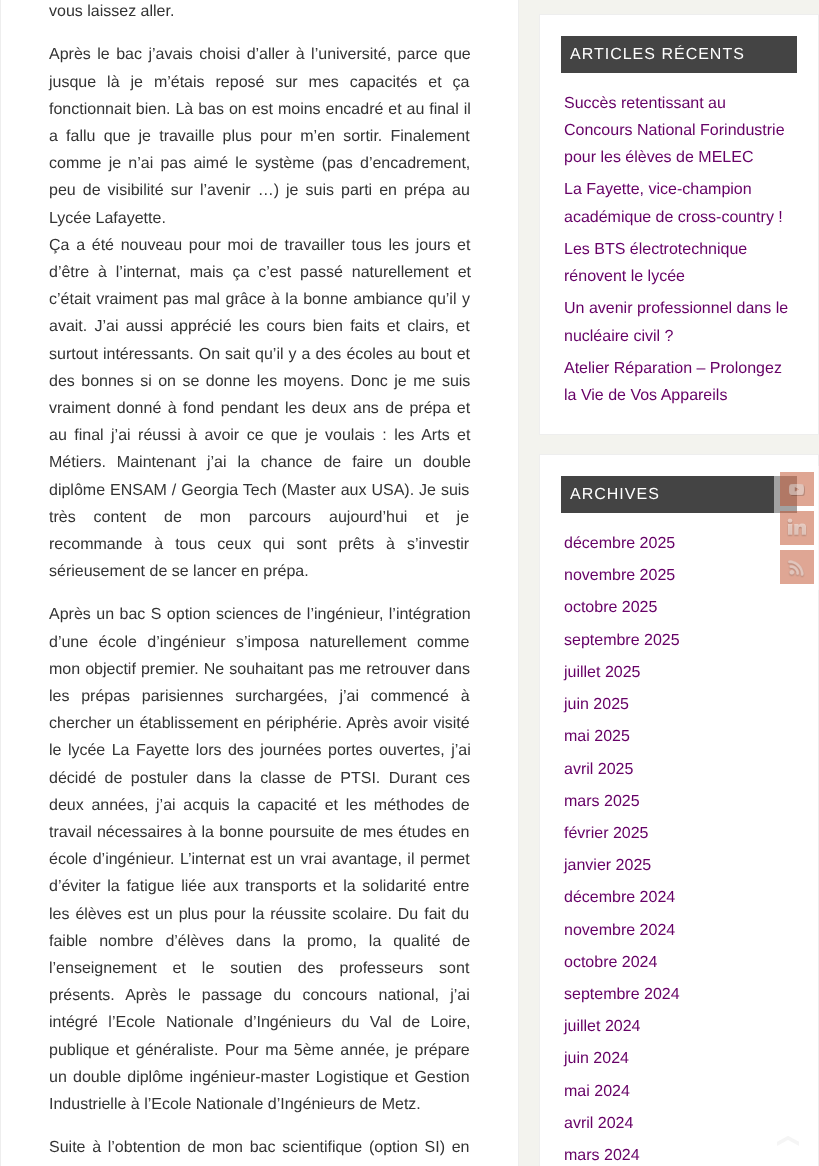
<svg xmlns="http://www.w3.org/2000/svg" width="819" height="1166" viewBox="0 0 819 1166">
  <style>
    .t1 { font: 16px Liberation Sans; fill: #333; }
    .t2 { font: 16px Liberation Sans; letter-spacing: 1px; fill: #fff; }
    .t3 { font: 16px Liberation Sans; fill: #606; }
  </style>
  <rect width="100%" height="100%" fill="#f3f3ee"/>
  <rect x="0.5" y="-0.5" width="518" height="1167" fill="#fff" stroke="#eee"/>
  <text x="49" y="16" class="t1">vous laissez aller.</text>
  <text x="49" y="59" word-spacing="2" class="t1">Après le bac j’avais choisi d’aller à l’université, parce que</text>
  <text x="49" y="87" word-spacing="6.5" class="t1">jusque là je m’étais reposé sur mes capacités et ça</text>
  <text x="49" y="114" word-spacing="0.5" class="t1">fonctionnait bien. Là bas on est moins encadré et au final il</text>
  <text x="49" y="141" word-spacing="3.75" class="t1">a fallu que je travaille plus pour m’en sortir. Finalement</text>
  <text x="49" y="168" word-spacing="2.75" class="t1">comme je n’ai pas aimé le système (pas d’encadrement,</text>
  <text x="49" y="195" word-spacing="2.6" class="t1">peu de visibilité sur l’avenir …) je suis parti en prépa au</text>
  <text x="49" y="223" class="t1">Lycée Lafayette.</text>
  <text x="49" y="250" word-spacing="2.25" class="t1">Ça a été nouveau pour moi de travailler tous les jours et</text>
  <text x="49" y="277" word-spacing="4.5" class="t1">d’être à l’internat, mais ça c’est passé naturellement et</text>
  <text x="49" y="304" word-spacing="1" class="t1">c’était vraiment pas mal grâce à la bonne ambiance qu’il y</text>
  <text x="49" y="331" word-spacing="2.75" class="t1">avait. J’ai aussi apprécié les cours bien faits et clairs, et</text>
  <text x="49" y="359" word-spacing="0.6" class="t1">surtout intéressants. On sait qu’il y a des écoles au bout et</text>
  <text x="49" y="386" word-spacing="2" class="t1">des bonnes si on se donne les moyens. Donc je me suis</text>
  <text x="49" y="413" word-spacing="2" class="t1">vraiment donné à fond pendant les deux ans de prépa et</text>
  <text x="49" y="440" word-spacing="3" class="t1">au final j’ai réussi à avoir ce que je voulais : les Arts et</text>
  <text x="49" y="467" word-spacing="6.5" class="t1">Métiers. Maintenant j’ai la chance de faire un double</text>
  <text x="49" y="495" word-spacing="0.5" class="t1">diplôme ENSAM / Georgia Tech (Master aux USA). Je suis</text>
  <text x="49" y="522" word-spacing="13.5" class="t1">très content de mon parcours aujourd’hui et je</text>
  <text x="49" y="549" word-spacing="7.5" class="t1">recommande à tous ceux qui sont prêts à s’investir</text>
  <text x="49" y="576" class="t1">sérieusement de se lancer en prépa.</text>
  <text x="49" y="619" word-spacing="1" class="t1">Après un bac S option sciences de l’ingénieur, l’intégration</text>
  <text x="49" y="647" word-spacing="6" class="t1">d’une école d’ingénieur s’imposa naturellement comme</text>
  <text x="49" y="674" word-spacing="0.6" class="t1">mon objectif premier. Ne souhaitant pas me retrouver dans</text>
  <text x="49" y="701" word-spacing="7.25" class="t1">les prépas parisiennes surchargées, j’ai commencé à</text>
  <text x="49" y="728" word-spacing="0.75" class="t1">chercher un établissement en périphérie. Après avoir visité</text>
  <text x="49" y="755" word-spacing="2" class="t1">le lycée La Fayette lors des journées portes ouvertes, j’ai</text>
  <text x="49" y="783" word-spacing="4" class="t1">décidé de postuler dans la classe de PTSI. Durant ces</text>
  <text x="49" y="810" word-spacing="3.25" class="t1">deux années, j’ai acquis la capacité et les méthodes de</text>
  <text x="49" y="837" word-spacing="0.75" class="t1">travail nécessaires à la bonne poursuite de mes études en</text>
  <text x="49" y="864" word-spacing="1" class="t1">école d’ingénieur. L’internat est un vrai avantage, il permet</text>
  <text x="49" y="891" word-spacing="2.25" class="t1">d’éviter la fatigue liée aux transports et la solidarité entre</text>
  <text x="49" y="919" word-spacing="1.5" class="t1">les élèves est un plus pour la réussite scolaire. Du fait du</text>
  <text x="49" y="946" word-spacing="7.5" class="t1">faible nombre d’élèves dans la promo, la qualité de</text>
  <text x="49" y="973" word-spacing="11.5" class="t1">l’enseignement et le soutien des professeurs sont</text>
  <text x="49" y="1000" word-spacing="6.75" class="t1">présents. Après le passage du concours national, j’ai</text>
  <text x="49" y="1027" word-spacing="6" class="t1">intégré l’Ecole Nationale d’Ingénieurs du Val de Loire,</text>
  <text x="49" y="1055" word-spacing="2" class="t1">publique et généraliste. Pour ma 5ème année, je prépare</text>
  <text x="49" y="1082" word-spacing="1.75" class="t1">un double diplôme ingénieur-master Logistique et Gestion</text>
  <text x="49" y="1109" class="t1">Industrielle à l’Ecole Nationale d’Ingénieurs de Metz.</text>
  <text x="49" y="1152" word-spacing="2.25" class="t1">Suite à l’obtention de mon bac scientifique (option SI) en</text>
  <rect x="539.5" y="14.5" width="279" height="420" fill="#fff" stroke="#eee"/>
  <rect x="561" y="36" width="236" height="37" fill="#444"/>
  <text x="570" y="59" class="t2">ARTICLES RÉCENTS</text>
  <text x="564" y="108" class="t3">Succès retentissant au</text>
  <text x="564" y="135" class="t3">Concours National Forindustrie</text>
  <text x="564" y="162" class="t3">pour les élèves de MELEC</text>
  <text x="564" y="194" class="t3">La Fayette, vice-champion</text>
  <text x="564" y="222" class="t3">académique de cross-country !</text>
  <text x="564" y="254" class="t3">Les BTS électrotechnique</text>
  <text x="564" y="281" class="t3">rénovent le lycée</text>
  <text x="564" y="313" class="t3">Un avenir professionnel dans le</text>
  <text x="564" y="341" class="t3">nucléaire civil ?</text>
  <text x="564" y="373" class="t3">Atelier Réparation – Prolongez</text>
  <text x="564" y="400" class="t3">la Vie de Vos Appareils</text>
  <rect x="539.5" y="454.5" width="279" height="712" fill="#fff" stroke="#eee"/>
  <rect x="561" y="476" width="236" height="37" fill="#444"/>
  <text x="570" y="499" class="t2">ARCHIVES</text>
  <text x="564" y="548" class="t3">décembre 2025</text>
  <text x="564" y="580" class="t3">novembre 2025</text>
  <text x="564" y="612" class="t3">octobre 2025</text>
  <text x="564" y="645" class="t3">septembre 2025</text>
  <text x="564" y="677" class="t3">juillet 2025</text>
  <text x="564" y="709" class="t3">juin 2025</text>
  <text x="564" y="741" class="t3">mai 2025</text>
  <text x="564" y="774" class="t3">avril 2025</text>
  <text x="564" y="806" class="t3">mars 2025</text>
  <text x="564" y="838" class="t3">février 2025</text>
  <text x="564" y="870" class="t3">janvier 2025</text>
  <text x="564" y="902" class="t3">décembre 2024</text>
  <text x="564" y="935" class="t3">novembre 2024</text>
  <text x="564" y="967" class="t3">octobre 2024</text>
  <text x="564" y="999" class="t3">septembre 2024</text>
  <text x="564" y="1031" class="t3">juillet 2024</text>
  <text x="564" y="1063" class="t3">juin 2024</text>
  <text x="564" y="1096" class="t3">mai 2024</text>
  <text x="564" y="1128" class="t3">avril 2024</text>
  <text x="564" y="1160" class="t3">mars 2024</text>
  <rect x="774" y="466" width="45" height="124" fill="#ffffff80"/>
  <rect x="780" y="472" width="34" height="34" fill="#bf4d2880"/>
  <image x="789" y="484" width="16" height="12" href="images/1.png"/>
  <rect x="780" y="511" width="34" height="34" fill="#bf4d2880"/>
  <image x="787" y="518" width="20" height="19" href="images/2.png"/>
  <rect x="780" y="550" width="34" height="34" fill="#dfa694"/>
  <image x="787" y="560" width="18" height="18" href="images/3.png"/>
  <image x="777" y="1136" width="22" height="10" href="images/4.png"/>
</svg>
